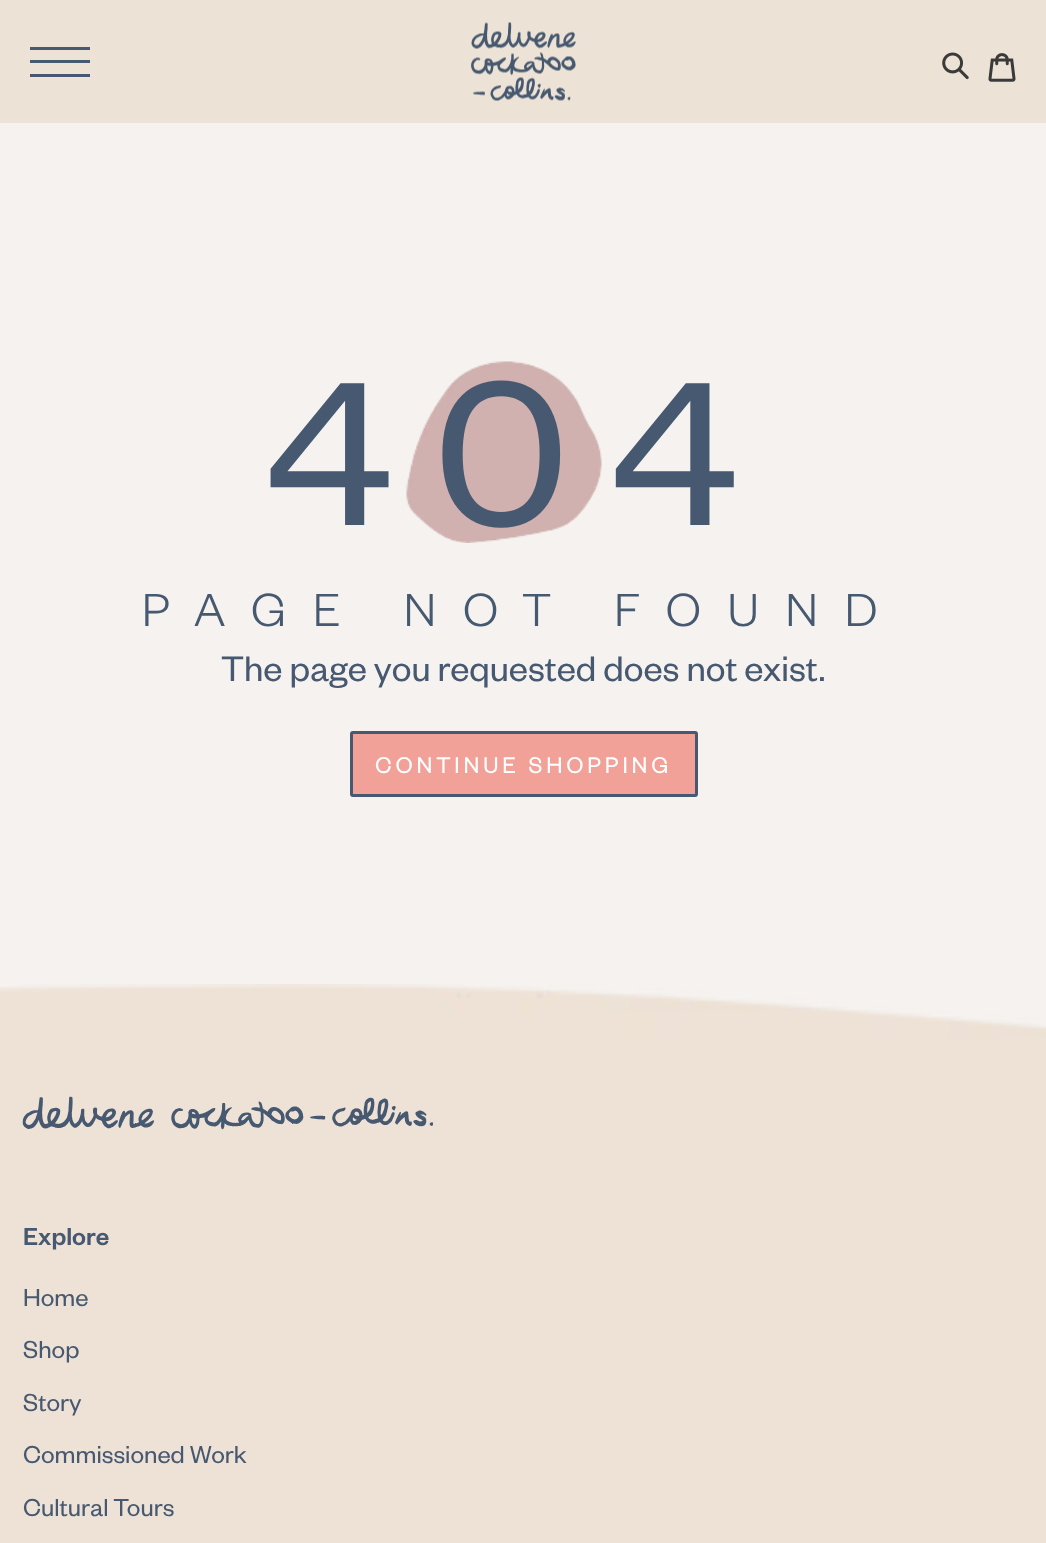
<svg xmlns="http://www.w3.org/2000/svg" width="1046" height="1543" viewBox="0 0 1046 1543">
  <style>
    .t1 { font: 225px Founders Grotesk; letter-spacing: 45px; fill: #475970; }
    .t2 { font: 300 51px Founders Grotesk; letter-spacing: 27px; fill: #475970; }
    .t3 { font: 39px Founders Grotesk; fill: #475970; }
    .t4 { font: bold 24px Founders Grotesk; letter-spacing: 4.5px; fill: #fff; }
    .t5 { font: 500 27px Founders Grotesk; fill: #475970; }
    .t6 { font: 27px Founders Grotesk; fill: #475970; }
  </style>
  <rect width="100%" height="100%" fill="#f5f2ef"/>
  <rect x="0" y="0" width="1046" height="123" fill="#ece2d5"/>
  <rect x="30" y="47" width="60" height="3" fill="#475970"/>
  <rect x="30" y="60" width="60" height="3" fill="#475970"/>
  <rect x="30" y="74" width="60" height="3" fill="#475970"/>
  <image x="471" y="22" width="105" height="79" href="images/1.png"/>
  <image x="942" y="52" width="27" height="28" href="images/2.png"/>
  <image x="988" y="53" width="28" height="29" href="images/3.png"/>
  <image x="406" y="361" width="196" height="182" href="images/4.png"/>
  <text x="267" y="525" class="t1">404</text>
  <text x="142" y="626" class="t2">PAGE NOT FOUND</text>
  <text x="221" y="681" class="t3">The page you requested does not exist.</text>
  <rect x="351.5" y="732.5" width="345" height="63" rx="1.5" fill="#f2a198" stroke="#475970" stroke-width="3"/>
  <text x="375" y="773" class="t4">CONTINUE SHOPPING</text>
  <image x="0" y="984" width="1046" height="559" href="images/5.png"/>
  <image x="22" y="1096" width="411" height="34" href="images/6.png"/>
  <text x="23" y="1245" class="t5">Explore</text>
  <text x="23" y="1306" class="t6">Home</text>
  <text x="23" y="1358" class="t6">Shop</text>
  <text x="23" y="1411" class="t6">Story</text>
  <text x="23" y="1463" class="t6">Commissioned Work</text>
  <text x="23" y="1516" class="t6">Cultural Tours</text>
</svg>
